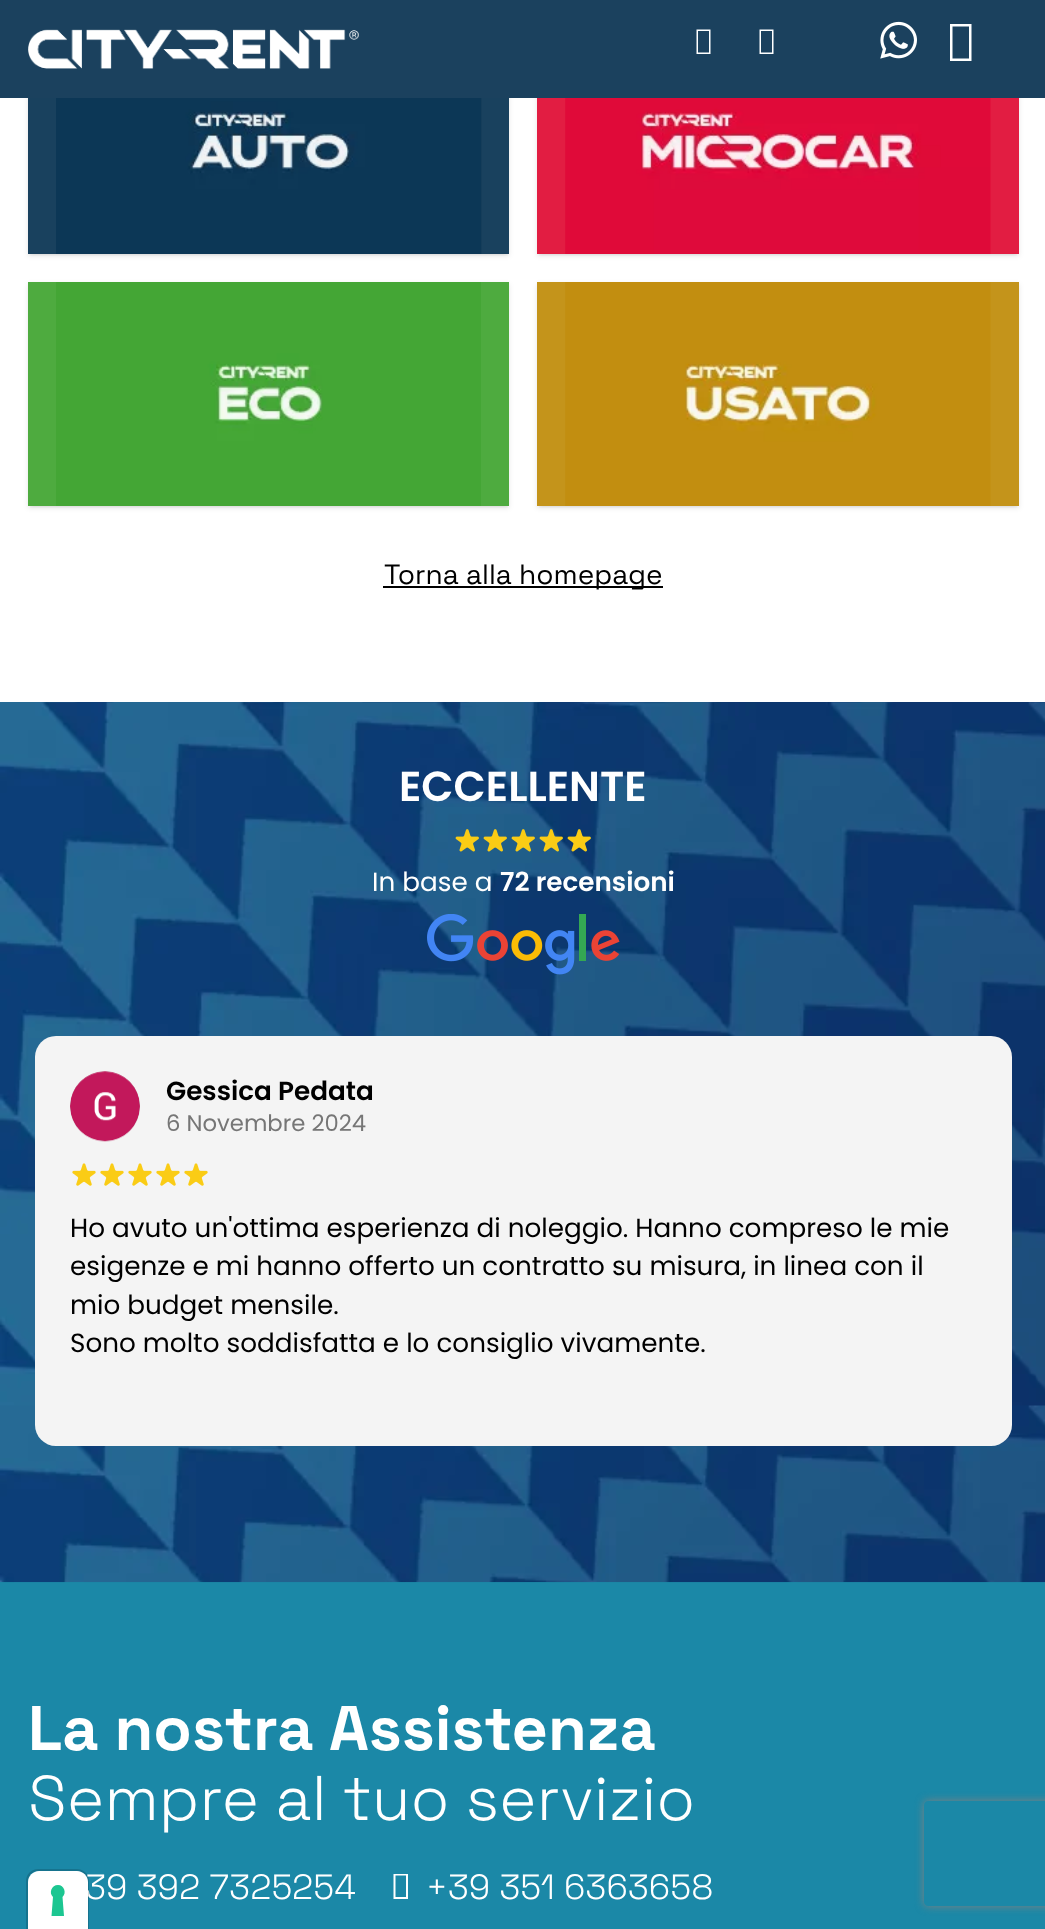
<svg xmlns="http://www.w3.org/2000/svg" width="1045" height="1929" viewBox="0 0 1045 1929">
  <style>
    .t1 { font: 28px Space Grotesk; fill: #000; }
    .t2 { font: 600 42px Poppins; fill: #fff; }
    .t3 { font: 26.25px Poppins; fill: #fff; }
    .t4 { font: 600 26.25px Poppins; fill: #fff; }
    .t5 { font: 600 26.25px Poppins; fill: #000; }
    .t6 { font: 22.75px Poppins; fill: #767676; }
    .t7 { font: 26.25px Poppins; fill: #000; }
    .t8 { font: bold 63px Space Grotesk; fill: #fff; }
    .t9 { font: 300 63px Space Grotesk; fill: #fff; }
    .t10 { font: 300 35px Space Grotesk; fill: #fff; }
  </style>
  <defs>
    <clipPath id="clip1"><rect x="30" y="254" width="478" height="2"/></clipPath>
    <clipPath id="clip2"><path d="M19 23H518V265H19ZM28 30H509V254H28Z" clip-rule="evenodd"/></clipPath>
    <clipPath id="clip3"><rect x="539" y="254" width="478" height="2"/></clipPath>
    <clipPath id="clip4"><path d="M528 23H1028V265H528ZM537 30H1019V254H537Z" clip-rule="evenodd"/></clipPath>
    <clipPath id="clip5"><rect x="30" y="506" width="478" height="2"/></clipPath>
    <clipPath id="clip6"><path d="M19 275H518V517H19ZM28 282H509V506H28Z" clip-rule="evenodd"/></clipPath>
    <clipPath id="clip7"><rect x="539" y="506" width="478" height="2"/></clipPath>
    <clipPath id="clip8"><path d="M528 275H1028V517H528ZM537 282H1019V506H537Z" clip-rule="evenodd"/></clipPath>
    <clipPath id="clip9"><path d="M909 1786H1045V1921H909ZM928 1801H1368C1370 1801 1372 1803 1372 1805V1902C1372 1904 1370 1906 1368 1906H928C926 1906 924 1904 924 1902V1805C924 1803 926 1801 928 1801Z" clip-rule="evenodd"/></clipPath>
  </defs>
  <rect width="100%" height="100%" fill="#fff"/>
  <g clip-path="url(#clip1)">
    <rect x="30" y="33" width="478" height="221" fill="#0000001a" filter="blur(2px)"/>
  </g>
  <g clip-path="url(#clip2)">
    <rect x="28" y="32" width="481" height="224" fill="#0000001a" filter="blur(2.5px)"/>
  </g>
  <g clip-path="url(#clip3)">
    <rect x="539" y="33" width="478" height="221" fill="#0000001a" filter="blur(2px)"/>
  </g>
  <g clip-path="url(#clip4)">
    <rect x="537" y="32" width="482" height="224" fill="#0000001a" filter="blur(2.5px)"/>
  </g>
  <rect x="0" y="0" width="1045" height="98" fill="#1b415e"/>
  <image x="28" y="29" width="331" height="40" href="images/1.png"/>
  <path d="M696.5 54V29.5H710.5V54ZM698 52.5H709V31H698Z" fill="#fff"/>
  <path d="M759.5 54V29.5H773.5V54ZM761 52.5H772V31H761Z" fill="#fff"/>
  <image x="880" y="21" width="37" height="38" href="images/2.png"/>
  <path d="M950 61V24H971.5V61ZM952.5 58.5H969V26.5H952.5Z" fill="#fff"/>
  <rect x="28" y="98" width="481" height="156" fill="#0d3755f2"/>
  <image x="56" y="98" width="426" height="156" href="images/3.png"/>
  <image x="537" y="98" width="482" height="137" href="images/4.png"/>
  <rect x="537" y="98" width="482" height="156" fill="#e01138f2"/>
  <image x="565" y="98" width="426" height="156" href="images/5.png"/>
  <g clip-path="url(#clip5)">
    <rect x="30" y="285" width="478" height="221" fill="#0000001a" filter="blur(2px)"/>
  </g>
  <g clip-path="url(#clip6)">
    <rect x="28" y="284" width="481" height="224" fill="#0000001a" filter="blur(2.5px)"/>
  </g>
  <rect x="28" y="282" width="481" height="224" fill="#44a735f2"/>
  <image x="56" y="282" width="425" height="224" href="images/6.png"/>
  <g clip-path="url(#clip7)">
    <rect x="539" y="285" width="478" height="221" fill="#0000001a" filter="blur(2px)"/>
  </g>
  <g clip-path="url(#clip8)">
    <rect x="537" y="284" width="482" height="224" fill="#0000001a" filter="blur(2.5px)"/>
  </g>
  <image x="537" y="286" width="482" height="214" href="images/7.png"/>
  <rect x="537" y="282" width="482" height="224" fill="#c18e0ff2"/>
  <image x="565" y="282" width="426" height="224" href="images/8.png"/>
  <rect x="383" y="586" width="280" height="2" fill="#000"/>
  <text x="384" y="584" class="t1">Torna alla homepage</text>
  <rect x="0" y="1582" width="1045" height="347" fill="#1b88a7"/>
  <image x="0" y="702" width="1045" height="881" href="images/9.png"/>
  <text x="399" y="801" class="t2">ECCELLENTE</text>
  <image x="455" y="829" width="24" height="23" href="images/10.png"/>
  <image x="483" y="829" width="24" height="23" href="images/11.png"/>
  <image x="511" y="829" width="24" height="23" href="images/12.png"/>
  <image x="539" y="829" width="24" height="23" href="images/13.png"/>
  <image x="567" y="829" width="24" height="23" href="images/14.png"/>
  <text x="372" y="891" class="t3">In base a</text>
  <text x="500" y="891" class="t4">72 recensioni</text>
  <image x="427" y="914" width="193" height="61" href="images/15.png"/>
  <rect x="35" y="1036" width="977" height="410" rx="21" fill="#f4f4f4"/>
  <image x="70" y="1071" width="70" height="71" href="images/16.png"/>
  <text x="166" y="1100" class="t5">Gessica Pedata</text>
  <text x="166" y="1131" class="t6">6 Novembre 2024</text>
  <image x="72" y="1163" width="24" height="23" href="images/17.png"/>
  <image x="100" y="1163" width="24" height="23" href="images/17.png"/>
  <image x="128" y="1163" width="24" height="23" href="images/17.png"/>
  <image x="156" y="1163" width="24" height="23" href="images/17.png"/>
  <image x="184" y="1163" width="24" height="23" href="images/17.png"/>
  <text x="70" y="1237" class="t7">Ho avuto un'ottima esperienza di noleggio. Hanno compreso le mie</text>
  <text x="70" y="1275" class="t7">esigenze e mi hanno offerto un contratto su misura, in linea con il</text>
  <text x="70" y="1314" class="t7">mio budget mensile.</text>
  <text x="70" y="1352" class="t7">Sono molto soddisfatta e lo consiglio vivamente.</text>
  <text x="28" y="1750" class="t8">La nostra Assistenza</text>
  <text x="28" y="1820" class="t9">Sempre al tuo servizio</text>
  <text x="85" y="1899" class="t10">39 392 7325254</text>
  <path d="M393.5 1899V1874H408V1899ZM395.5 1897H406V1875.5H395.5Z" fill="#fff"/>
  <text x="426" y="1899" class="t10">+39 351 6363658</text>
  <g clip-path="url(#clip9)">
    <rect x="924" y="1801" width="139" height="105" rx="4" fill="#808080" filter="blur(4.5px)"/>
  </g>
  <path d="M38 1870H77C83 1870 88 1875 88 1881V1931H27V1881C27 1875 32 1870 38 1870Z" fill="none" stroke="#00000026" stroke-width="2"/>
  <path d="M39 1871H77C83 1871 88 1876 88 1882V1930H28V1882C28 1876 33 1871 39 1871Z" fill="#fff"/>
  <path d="M58 1885C64 1885 67 1893 62.5 1897L64 1916H51.5L53 1897C48.5 1893 51.5 1885 58 1885Z" fill="#1cc691" fill-rule="evenodd"/>
</svg>
